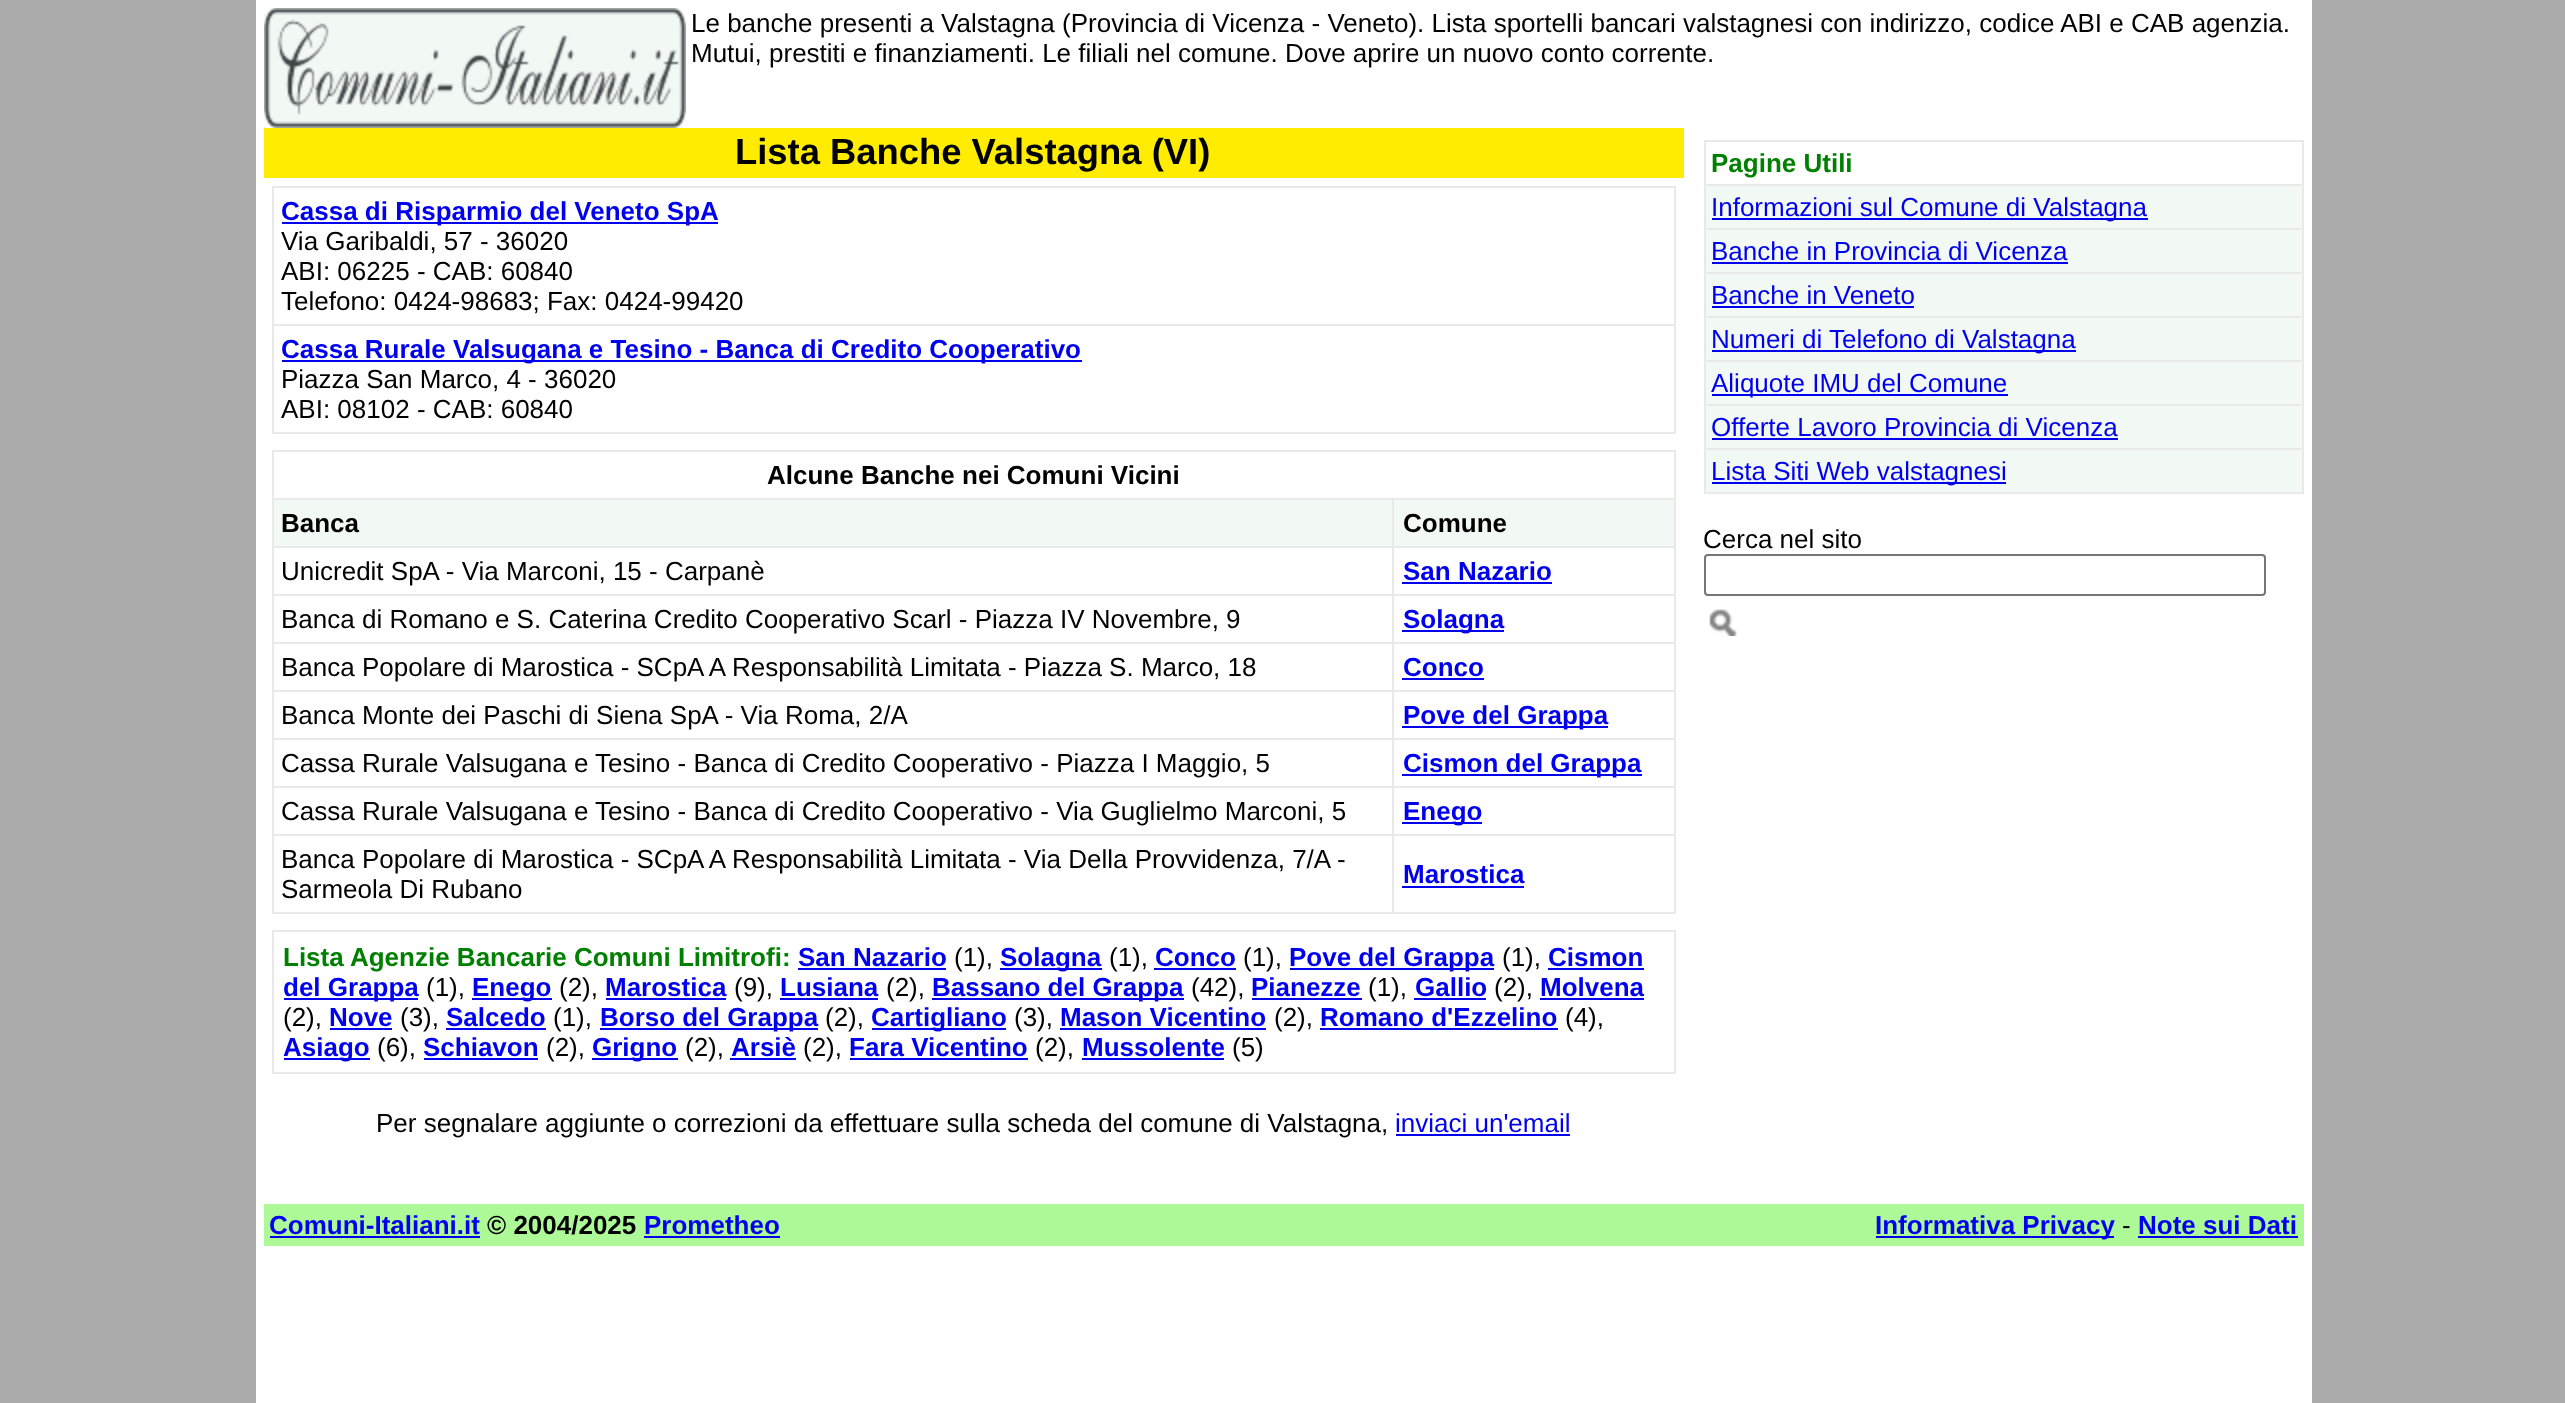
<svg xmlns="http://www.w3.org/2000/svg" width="2565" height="1403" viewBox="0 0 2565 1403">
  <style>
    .t1 { font: 26px Liberation Sans; fill: #000; }
    .t2 { font: bold 36.4px Liberation Sans; fill: #000; }
    .t3 { font: bold 26px Liberation Sans; fill: #00e; }
    .t4 { font: bold 26px Liberation Sans; fill: #000; }
    .t5 { font: bold 26px Liberation Sans; fill: #008000; }
    .t6 { font: 26px Liberation Sans; fill: #00e; }
  </style>
  <rect width="100%" height="100%" fill="#aaa"/>
  <rect x="256" y="0" width="2056" height="1403" fill="#fff"/>
  <image x="264" y="8" width="422" height="120" href="images/1.png"/>
  <text x="691" y="32" class="t1">Le banche presenti a Valstagna (Provincia di Vicenza - Veneto). Lista sportelli bancari valstagnesi con indirizzo, codice ABI e CAB agenzia.</text>
  <text x="691" y="62" class="t1">Mutui, prestiti e finanziamenti. Le filiali nel comune. Dove aprire un nuovo conto corrente.</text>
  <rect x="264" y="128" width="1420" height="50" fill="#ffec00"/>
  <text x="735" y="164" class="t2">Lista Banche Valstagna (VI)</text>
  <rect x="272" y="186" width="1404" height="2" fill="#e9e9e9"/>
  <rect x="1674" y="186" width="2" height="248" fill="#e9e9e9"/>
  <rect x="272" y="432" width="1404" height="2" fill="#e9e9e9"/>
  <rect x="272" y="186" width="2" height="248" fill="#e9e9e9"/>
  <rect x="282" y="222" width="436" height="2" fill="#00e"/>
  <text x="281" y="220" class="t3">Cassa di Risparmio del Veneto SpA</text>
  <text x="281" y="250" class="t1">Via Garibaldi, 57 - 36020</text>
  <text x="281" y="280" class="t1">ABI: 06225 - CAB: 60840</text>
  <text x="281" y="310" class="t1">Telefono: 0424-98683; Fax: 0424-99420</text>
  <rect x="272" y="324" width="1404" height="2" fill="#e9e9e9"/>
  <rect x="282" y="360" width="800" height="2" fill="#00e"/>
  <text x="281" y="358" class="t3">Cassa Rurale Valsugana e Tesino - Banca di Credito Cooperativo</text>
  <text x="281" y="388" class="t1">Piazza San Marco, 4 - 36020</text>
  <text x="281" y="418" class="t1">ABI: 08102 - CAB: 60840</text>
  <rect x="272" y="450" width="1404" height="2" fill="#e9e9e9"/>
  <rect x="1674" y="450" width="2" height="464" fill="#e9e9e9"/>
  <rect x="272" y="912" width="1404" height="2" fill="#e9e9e9"/>
  <rect x="272" y="450" width="2" height="464" fill="#e9e9e9"/>
  <text x="767" y="484" class="t4">Alcune Banche nei Comuni Vicini</text>
  <rect x="274" y="500" width="1118" height="46" fill="#f2f8f4"/>
  <rect x="1392" y="498" width="284" height="2" fill="#e9e9e9"/>
  <rect x="1392" y="546" width="284" height="2" fill="#e9e9e9"/>
  <rect x="1392" y="594" width="284" height="2" fill="#e9e9e9"/>
  <rect x="1392" y="642" width="284" height="2" fill="#e9e9e9"/>
  <rect x="1392" y="690" width="284" height="2" fill="#e9e9e9"/>
  <rect x="1392" y="738" width="284" height="2" fill="#e9e9e9"/>
  <rect x="1392" y="786" width="284" height="2" fill="#e9e9e9"/>
  <rect x="1392" y="834" width="284" height="2" fill="#e9e9e9"/>
  <rect x="1392" y="834" width="2" height="80" fill="#e9e9e9"/>
  <rect x="272" y="834" width="1122" height="2" fill="#e9e9e9"/>
  <rect x="1392" y="786" width="2" height="50" fill="#e9e9e9"/>
  <rect x="272" y="786" width="1122" height="2" fill="#e9e9e9"/>
  <rect x="1392" y="738" width="2" height="50" fill="#e9e9e9"/>
  <rect x="272" y="738" width="1122" height="2" fill="#e9e9e9"/>
  <rect x="1392" y="690" width="2" height="50" fill="#e9e9e9"/>
  <rect x="272" y="690" width="1122" height="2" fill="#e9e9e9"/>
  <rect x="1392" y="642" width="2" height="50" fill="#e9e9e9"/>
  <rect x="272" y="642" width="1122" height="2" fill="#e9e9e9"/>
  <rect x="1392" y="594" width="2" height="50" fill="#e9e9e9"/>
  <rect x="272" y="594" width="1122" height="2" fill="#e9e9e9"/>
  <rect x="1392" y="546" width="2" height="50" fill="#e9e9e9"/>
  <rect x="272" y="546" width="1122" height="2" fill="#e9e9e9"/>
  <rect x="1392" y="498" width="2" height="50" fill="#e9e9e9"/>
  <rect x="272" y="498" width="1122" height="2" fill="#e9e9e9"/>
  <text x="281" y="532" class="t4">Banca</text>
  <rect x="1394" y="500" width="280" height="46" fill="#f2f8f4"/>
  <text x="1403" y="532" class="t4">Comune</text>
  <text x="281" y="580" class="t1">Unicredit SpA - Via Marconi, 15 - Carpanè</text>
  <text x="1403" y="580" class="t3">San Nazario</text>
  <rect x="1402" y="582" width="150" height="2" fill="#00e"/>
  <text x="281" y="628" class="t1">Banca di Romano e S. Caterina Credito Cooperativo Scarl - Piazza IV Novembre, 9</text>
  <rect x="1402" y="630" width="102" height="2" fill="#00e"/>
  <text x="1403" y="628" class="t3">Solagna</text>
  <text x="281" y="676" class="t1">Banca Popolare di Marostica - SCpA A Responsabilità Limitata - Piazza S. Marco, 18</text>
  <text x="1403" y="676" class="t3">Conco</text>
  <rect x="1402" y="678" width="82" height="2" fill="#00e"/>
  <text x="281" y="724" class="t1">Banca Monte dei Paschi di Siena SpA - Via Roma, 2/A</text>
  <rect x="1402" y="726" width="206" height="2" fill="#00e"/>
  <text x="1403" y="724" class="t3">Pove del Grappa</text>
  <text x="281" y="772" class="t1">Cassa Rurale Valsugana e Tesino - Banca di Credito Cooperativo - Piazza I Maggio, 5</text>
  <rect x="1402" y="774" width="240" height="2" fill="#00e"/>
  <text x="1403" y="772" class="t3">Cismon del Grappa</text>
  <text x="281" y="820" class="t1">Cassa Rurale Valsugana e Tesino - Banca di Credito Cooperativo - Via Guglielmo Marconi, 5</text>
  <rect x="1402" y="822" width="80" height="2" fill="#00e"/>
  <text x="1403" y="820" class="t3">Enego</text>
  <text x="281" y="868" class="t1">Banca Popolare di Marostica - SCpA A Responsabilità Limitata - Via Della Provvidenza, 7/A -</text>
  <text x="281" y="898" class="t1">Sarmeola Di Rubano</text>
  <text x="1403" y="883" class="t3">Marostica</text>
  <rect x="1402" y="886" width="122" height="2" fill="#00e"/>
  <rect x="272" y="930" width="1404" height="2" fill="#e9e9e9"/>
  <rect x="1674" y="930" width="2" height="144" fill="#e9e9e9"/>
  <rect x="272" y="1072" width="1404" height="2" fill="#e9e9e9"/>
  <rect x="272" y="930" width="2" height="144" fill="#e9e9e9"/>
  <text x="283" y="966" class="t5">Lista Agenzie Bancarie Comuni Limitrofi:</text>
  <text x="798" y="966" class="t3">San Nazario</text>
  <rect x="798" y="968" width="148" height="2" fill="#00e"/>
  <text x="954" y="966" class="t1">(1),</text>
  <rect x="1000" y="968" width="102" height="2" fill="#00e"/>
  <text x="1000" y="966" class="t3">Solagna</text>
  <text x="1109" y="966" class="t1">(1),</text>
  <text x="1155" y="966" class="t3">Conco</text>
  <rect x="1154" y="968" width="82" height="2" fill="#00e"/>
  <text x="1243" y="966" class="t1">(1),</text>
  <rect x="1290" y="968" width="204" height="2" fill="#00e"/>
  <text x="1289" y="966" class="t3">Pove del Grappa</text>
  <text x="1502" y="966" class="t1">(1),</text>
  <text x="1548" y="966" class="t3">Cismon</text>
  <rect x="1548" y="968" width="96" height="2" fill="#00e"/>
  <rect x="284" y="998" width="134" height="2" fill="#00e"/>
  <text x="283" y="996" class="t3">del Grappa</text>
  <text x="426" y="996" class="t1">(1),</text>
  <rect x="472" y="998" width="80" height="2" fill="#00e"/>
  <text x="472" y="996" class="t3">Enego</text>
  <text x="559" y="996" class="t1">(2),</text>
  <text x="605" y="996" class="t3">Marostica</text>
  <rect x="606" y="998" width="120" height="2" fill="#00e"/>
  <text x="734" y="996" class="t1">(9),</text>
  <text x="780" y="996" class="t3">Lusiana</text>
  <rect x="780" y="998" width="98" height="2" fill="#00e"/>
  <text x="886" y="996" class="t1">(2),</text>
  <rect x="932" y="998" width="252" height="2" fill="#00e"/>
  <text x="932" y="996" class="t3">Bassano del Grappa</text>
  <text x="1191" y="996" class="t1">(42),</text>
  <text x="1251" y="996" class="t3">Pianezze</text>
  <rect x="1252" y="998" width="110" height="2" fill="#00e"/>
  <text x="1368" y="996" class="t1">(1),</text>
  <text x="1415" y="996" class="t3">Gallio</text>
  <rect x="1414" y="998" width="72" height="2" fill="#00e"/>
  <text x="1494" y="996" class="t1">(2),</text>
  <text x="1540" y="996" class="t3">Molvena</text>
  <rect x="1540" y="998" width="104" height="2" fill="#00e"/>
  <text x="283" y="1026" class="t1">(2),</text>
  <text x="329" y="1026" class="t3">Nove</text>
  <rect x="330" y="1028" width="62" height="2" fill="#00e"/>
  <text x="400" y="1026" class="t1">(3),</text>
  <text x="446" y="1026" class="t3">Salcedo</text>
  <rect x="446" y="1028" width="100" height="2" fill="#00e"/>
  <text x="553" y="1026" class="t1">(1),</text>
  <rect x="600" y="1028" width="218" height="2" fill="#00e"/>
  <text x="600" y="1026" class="t3">Borso del Grappa</text>
  <text x="825" y="1026" class="t1">(2),</text>
  <rect x="872" y="1028" width="134" height="2" fill="#00e"/>
  <text x="871" y="1026" class="t3">Cartigliano</text>
  <text x="1014" y="1026" class="t1">(3),</text>
  <text x="1060" y="1026" class="t3">Mason Vicentino</text>
  <rect x="1060" y="1028" width="206" height="2" fill="#00e"/>
  <text x="1274" y="1026" class="t1">(2),</text>
  <text x="1320" y="1026" class="t3">Romano d'Ezzelino</text>
  <rect x="1320" y="1028" width="238" height="2" fill="#00e"/>
  <text x="1565" y="1026" class="t1">(4),</text>
  <rect x="284" y="1058" width="86" height="2" fill="#00e"/>
  <text x="283" y="1056" class="t3">Asiago</text>
  <text x="377" y="1056" class="t1">(6),</text>
  <text x="423" y="1056" class="t3">Schiavon</text>
  <rect x="424" y="1058" width="114" height="2" fill="#00e"/>
  <text x="546" y="1056" class="t1">(2),</text>
  <rect x="592" y="1058" width="86" height="2" fill="#00e"/>
  <text x="592" y="1056" class="t3">Grigno</text>
  <text x="685" y="1056" class="t1">(2),</text>
  <text x="731" y="1056" class="t3">Arsiè</text>
  <rect x="730" y="1058" width="66" height="2" fill="#00e"/>
  <text x="803" y="1056" class="t1">(2),</text>
  <text x="849" y="1056" class="t3">Fara Vicentino</text>
  <rect x="850" y="1058" width="178" height="2" fill="#00e"/>
  <text x="1035" y="1056" class="t1">(2),</text>
  <text x="1082" y="1056" class="t3">Mussolente</text>
  <rect x="1082" y="1058" width="142" height="2" fill="#00e"/>
  <text x="1232" y="1056" class="t1">(5)</text>
  <text x="376" y="1132" class="t1">Per segnalare aggiunte o correzioni da effettuare sulla scheda del comune di Valstagna,</text>
  <text x="1395" y="1132" class="t6">inviaci un'email</text>
  <rect x="1396" y="1134" width="174" height="2" fill="#00e"/>
  <rect x="1706" y="186" width="596" height="306" fill="#f2f8f4"/>
  <rect x="1704" y="140" width="600" height="2" fill="#e9e9e9"/>
  <rect x="2302" y="140" width="2" height="354" fill="#e9e9e9"/>
  <rect x="1704" y="492" width="600" height="2" fill="#e9e9e9"/>
  <rect x="1704" y="140" width="2" height="354" fill="#e9e9e9"/>
  <text x="1711" y="172" class="t5">Pagine Utili</text>
  <rect x="1704" y="184" width="600" height="2" fill="#e9e9e9"/>
  <rect x="1712" y="218" width="436" height="2" fill="#00e"/>
  <text x="1711" y="216" class="t6">Informazioni sul Comune di Valstagna</text>
  <rect x="1704" y="228" width="600" height="2" fill="#e9e9e9"/>
  <text x="1711" y="260" class="t6">Banche in Provincia di Vicenza</text>
  <rect x="1712" y="262" width="356" height="2" fill="#00e"/>
  <rect x="1704" y="272" width="600" height="2" fill="#e9e9e9"/>
  <text x="1711" y="304" class="t6">Banche in Veneto</text>
  <rect x="1712" y="306" width="202" height="2" fill="#00e"/>
  <rect x="1704" y="316" width="600" height="2" fill="#e9e9e9"/>
  <rect x="1712" y="350" width="364" height="2" fill="#00e"/>
  <text x="1711" y="348" class="t6">Numeri di Telefono di Valstagna</text>
  <rect x="1704" y="360" width="600" height="2" fill="#e9e9e9"/>
  <rect x="1712" y="394" width="296" height="2" fill="#00e"/>
  <text x="1711" y="392" class="t6">Aliquote IMU del Comune</text>
  <rect x="1704" y="404" width="600" height="2" fill="#e9e9e9"/>
  <text x="1711" y="436" class="t6">Offerte Lavoro Provincia di Vicenza</text>
  <rect x="1712" y="438" width="406" height="2" fill="#00e"/>
  <rect x="1704" y="448" width="600" height="2" fill="#e9e9e9"/>
  <rect x="1712" y="482" width="294" height="2" fill="#00e"/>
  <text x="1711" y="480" class="t6">Lista Siti Web valstagnesi</text>
  <text x="1703" y="548" class="t1">Cerca nel sito</text>
  <rect x="1705" y="555" width="560" height="40" rx="3" fill="none" stroke="#767676" stroke-width="2"/>
  <image x="1709" y="609" width="28" height="27" href="images/2.png"/>
  <rect x="264" y="1204" width="2040" height="42" fill="#adf997"/>
  <text x="269" y="1234" class="t3">Comuni-Italiani.it</text>
  <rect x="270" y="1236" width="210" height="2" fill="#00e"/>
  <text x="487" y="1234" class="t4">© 2004/2025</text>
  <text x="644" y="1234" class="t3">Prometheo</text>
  <rect x="644" y="1236" width="136" height="2" fill="#00e"/>
  <rect x="1876" y="1236" width="238" height="2" fill="#00e"/>
  <text x="1875" y="1234" class="t3">Informativa Privacy</text>
  <text x="2122" y="1234" class="t1">-</text>
  <text x="2138" y="1234" class="t3">Note sui Dati</text>
  <rect x="2138" y="1236" width="160" height="2" fill="#00e"/>
</svg>
